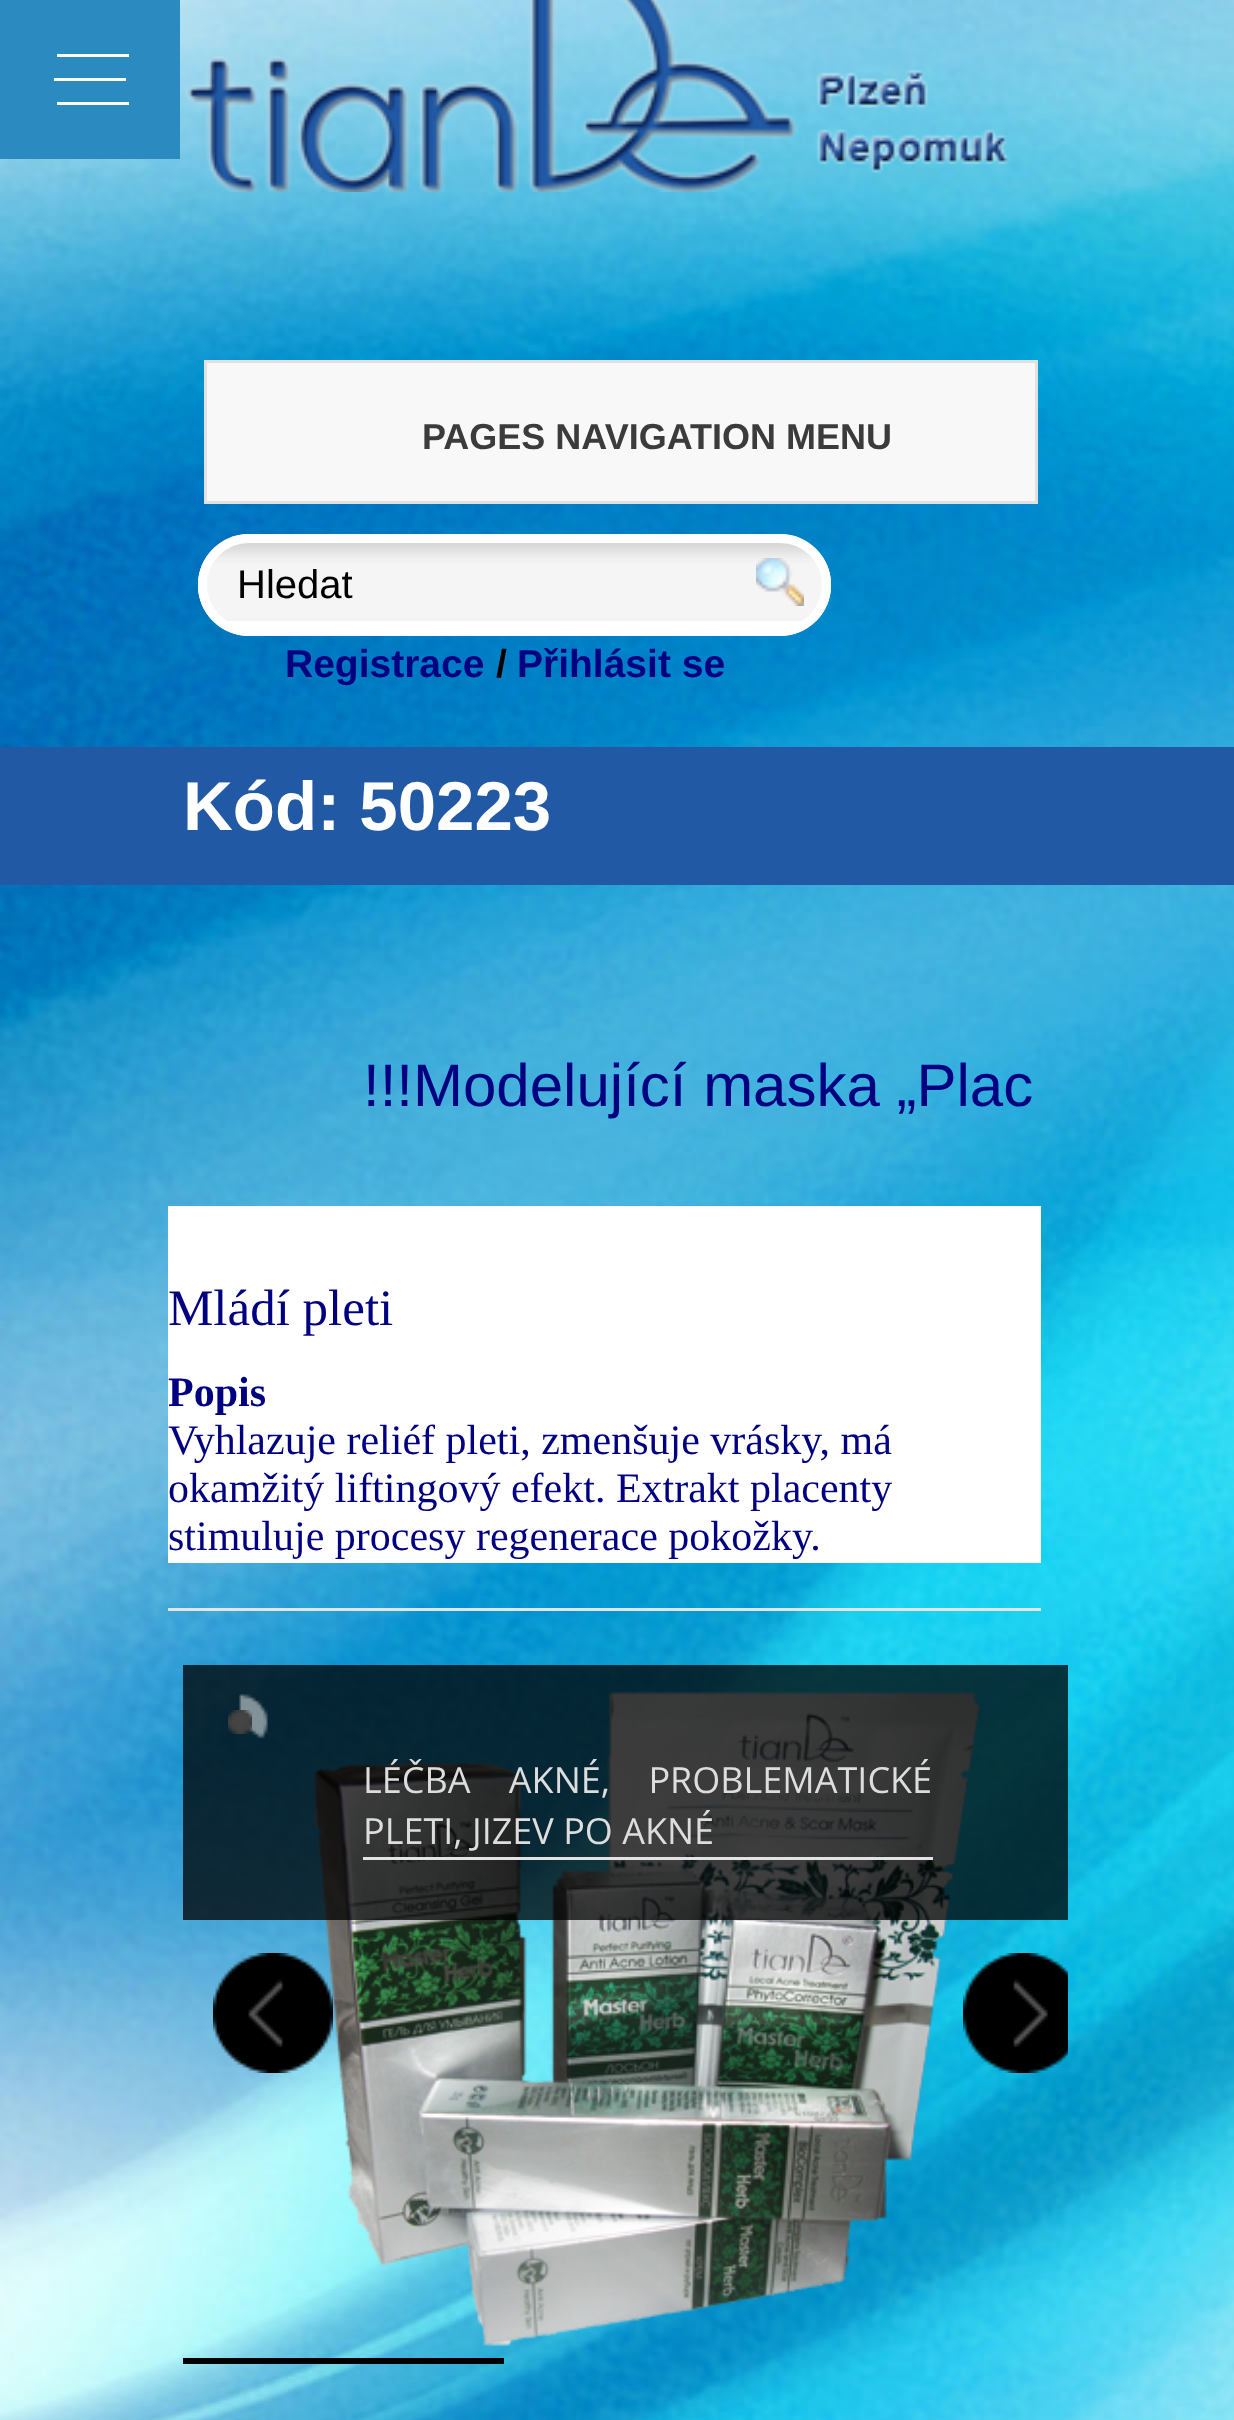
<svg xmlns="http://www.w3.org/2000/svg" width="1234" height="2420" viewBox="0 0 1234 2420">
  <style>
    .t1 { font: bold 36px Liberation Sans; fill: #3b3b3b; }
    .t2 { font: 40px Liberation Sans; fill: #000; }
    .t3 { font: bold 39px Liberation Sans; fill: #000080; }
    .t4 { font: bold 39px Liberation Sans; fill: #000; }
    .t5 { font: bold 69px Liberation Sans; fill: #fff; }
    .t6 { font: 60px Liberation Sans; fill: #000080; }
    .t7 { font: 51px Liberation Serif; fill: #000080; }
    .t8 { font: bold 42px Liberation Serif; fill: #000080; }
    .t9 { font: 42px Liberation Serif; fill: #000080; }
    .t10 { font: 36px Open Sans; fill: #ddd; }
  </style>
  <rect width="100%" height="100%" fill="#fff"/>
  <image x="0" y="0" width="1234" height="2420" href="images/1.png"/>
  <rect x="0" y="0" width="180" height="159" fill="#2b8ac0"/>
  <rect x="54" y="78" width="72" height="3" fill="#fff"/>
  <rect x="57" y="54" width="72" height="3" fill="#fff"/>
  <rect x="57" y="102" width="72" height="3" fill="#fff"/>
  <image x="185" y="0" width="825" height="192" href="images/2.png"/>
  <rect x="205.5" y="361.5" width="831" height="141" fill="#f8f8f8" stroke="#e2e0e0" stroke-width="3"/>
  <text x="422" y="449" class="t1">PAGES NAVIGATION MENU</text>
  <rect x="198" y="534" width="633" height="102" rx="51" fill="#fff"/>
  <image x="198" y="543" width="633" height="78" href="images/3.png"/>
  <rect x="202.5" y="538.5" width="624" height="93" rx="46.5" fill="none" stroke="#fff" stroke-width="9"/>
  <text x="237" y="598" class="t2">Hledat</text>
  <image x="756" y="558" width="48" height="48" href="images/4.png"/>
  <text x="285" y="677" class="t3">Registrace</text>
  <text x="496" y="677" class="t4">/</text>
  <text x="517" y="677" class="t3">Přihlásit se</text>
  <rect x="0" y="747" width="1234" height="138" fill="#2259a5"/>
  <text x="183" y="830" class="t5">Kód: 50223</text>
  <rect x="168" y="1608" width="873" height="3" fill="#e5e5e5"/>
  <text x="363" y="1106" class="t6">!!!Modelující maska „Plac</text>
  <rect x="168" y="1206" width="873" height="357" fill="#fff"/>
  <text x="168" y="1325" class="t7">Mládí pleti</text>
  <text x="168" y="1406" class="t8">Popis</text>
  <text x="168" y="1454" class="t9">Vyhlazuje reliéf pleti, zmenšuje vrásky, má</text>
  <text x="168" y="1502" class="t9">okamžitý liftingový efekt. Extrakt placenty</text>
  <text x="168" y="1550" class="t9">stimuluje procesy regenerace pokožky.</text>
  <image x="314" y="1691" width="666" height="655" href="images/5.png"/>
  <rect x="183" y="1665" width="885" height="255" fill="#000000bf"/>
  <image x="239" y="1694" width="29" height="45" href="images/6.png"/>
  <image x="228" y="1710" width="24" height="24" href="images/7.png"/>
  <rect x="363" y="1857" width="570" height="3" fill="#e3e2e2"/>
  <text x="363" y="1793" word-spacing="29" class="t10">LÉČBA AKNÉ, PROBLEMATICKÉ</text>
  <text x="363" y="1844" class="t10">PLETI, JIZEV PO AKNÉ</text>
  <image x="213" y="1953" width="120" height="120" href="images/8.png"/>
  <image x="963" y="1953" width="105" height="120" href="images/9.png"/>
  <rect x="183" y="2358" width="321" height="6" fill="#000"/>
</svg>
